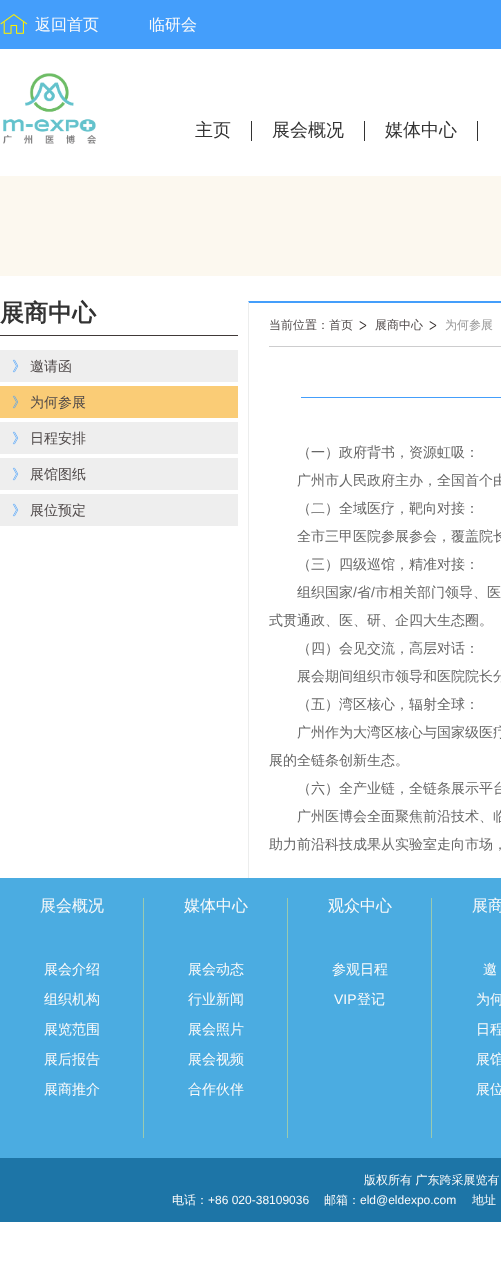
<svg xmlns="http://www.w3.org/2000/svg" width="501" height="1277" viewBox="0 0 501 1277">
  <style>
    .t1 { font: 500 16px WenQuanYi Zen Hei; fill: #fafafa; }
    .t2 { font: 500 18px WenQuanYi Zen Hei; fill: #333; }
    .t3 { font: bold 24px WenQuanYi Zen Hei; fill: #333; }
    .t4 { font: 500 14px WenQuanYi Zen Hei; fill: #449efb; }
    .t5 { font: 500 14px WenQuanYi Zen Hei; fill: #504a4a; }
    .t6 { font: 500 12px WenQuanYi Zen Hei; fill: #504a4a; }
    .t7 { font: 500 12px WenQuanYi Zen Hei; fill: #999; }
    .t8 { font: 500 14px WenQuanYi Zen Hei; fill: #666; }
    .t9 { font: 14px Liberation Sans; fill: #666; }
    .t10 { font: 500 14px WenQuanYi Zen Hei; fill: #fafafa; }
    .t11 { font: 14px Liberation Sans; fill: #fafafa; }
    .t12 { font: 500 12px WenQuanYi Zen Hei; fill: #fafafa; }
    .t13 { font: 12px Liberation Sans; fill: #fafafa; }
  </style>
  <rect width="100%" height="100%" fill="#fff"/>
  <rect x="0" y="0" width="501" height="49" fill="#449efb"/>
  <image x="0" y="14" width="28" height="20" href="images/1.png"/>
  <text x="35" y="30" class="t1">返回首页</text>
  <text x="149" y="30" class="t1">临研会</text>
  <image x="3" y="73" width="93" height="71" href="images/2.png"/>
  <rect x="251" y="121" width="1" height="20" fill="#333"/>
  <text x="195" y="136" class="t2">主页</text>
  <rect x="364" y="121" width="1" height="20" fill="#333"/>
  <text x="272" y="136" class="t2">展会概况</text>
  <rect x="477" y="121" width="1" height="20" fill="#333"/>
  <text x="385" y="136" class="t2">媒体中心</text>
  <rect x="0" y="176" width="501" height="100" fill="#fcf8ef"/>
  <rect x="0" y="335" width="238" height="1" fill="#403938"/>
  <text x="0" y="321" class="t3">展商中心</text>
  <rect x="0" y="350" width="238" height="32" fill="#eee"/>
  <text x="12" y="371" class="t4">》</text>
  <text x="30" y="371" class="t5">邀请函</text>
  <rect x="0" y="386" width="238" height="32" fill="#facc76"/>
  <text x="12" y="407" class="t4">》</text>
  <text x="30" y="407" class="t5">为何参展</text>
  <rect x="0" y="422" width="238" height="32" fill="#eee"/>
  <text x="12" y="443" class="t4">》</text>
  <text x="30" y="443" class="t5">日程安排</text>
  <rect x="0" y="458" width="238" height="32" fill="#eee"/>
  <text x="12" y="479" class="t4">》</text>
  <text x="30" y="479" class="t5">展馆图纸</text>
  <rect x="0" y="494" width="238" height="32" fill="#eee"/>
  <text x="12" y="515" class="t4">》</text>
  <text x="30" y="515" class="t5">展位预定</text>
  <path d="M248 301H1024L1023 303H249Z" fill="#449efb"/>
  <path d="M248 878V301L249 303V878Z" fill="#eceded"/>
  <rect x="269" y="346" width="232" height="1" fill="#cdcdce"/>
  <image x="359" y="321" width="8" height="9" href="images/3.png"/>
  <text x="269" y="329" class="t6">当前位置：首页</text>
  <image x="429" y="321" width="8" height="9" href="images/3.png"/>
  <text x="375" y="329" class="t6">展商中心</text>
  <text x="445" y="329" class="t7">为何参展</text>
  <rect x="301" y="397" width="200" height="1" fill="#449efb"/>
  <text x="297" y="457" class="t8">（一）政府背书，资源虹吸：</text>
  <text x="297" y="485" class="t8">广州市人民政府主办，全国首个由</text>
  <text x="297" y="513" class="t8">（二）全域医疗，靶向对接：</text>
  <text x="297" y="541" class="t8">全市三甲医院参展参会，覆盖院长</text>
  <text x="297" y="569" class="t8">（三）四级巡馆，精准对接：</text>
  <text x="297" y="597" class="t8">组织国家</text>
  <text x="353" y="597" class="t9">/</text>
  <text x="357" y="597" class="t8">省</text>
  <text x="371" y="597" class="t9">/</text>
  <text x="375" y="597" class="t8">市相关部门领导、医</text>
  <text x="269" y="625" class="t8">式贯通政、医、研、企四大生态圈。</text>
  <text x="297" y="653" class="t8">（四）会见交流，高层对话：</text>
  <text x="297" y="681" class="t8">展会期间组织市领导和医院院长分</text>
  <text x="297" y="709" class="t8">（五）湾区核心，辐射全球：</text>
  <text x="297" y="737" class="t8">广州作为大湾区核心与国家级医疗</text>
  <text x="269" y="765" class="t8">展的全链条创新生态。</text>
  <text x="297" y="793" class="t8">（六）全产业链，全链条展示平台</text>
  <text x="297" y="821" class="t8">广州医博会全面聚焦前沿技术、临</text>
  <text x="269" y="849" class="t8">助力前沿科技成果从实验室走向市场，</text>
  <rect x="0" y="878" width="501" height="280" fill="#4bace1"/>
  <rect x="143" y="898" width="1" height="240" fill="#98cab1"/>
  <text x="40" y="911" class="t1">展会概况</text>
  <text x="44" y="974" class="t10">展会介绍</text>
  <text x="44" y="1004" class="t10">组织机构</text>
  <text x="44" y="1034" class="t10">展览范围</text>
  <text x="44" y="1064" class="t10">展后报告</text>
  <text x="44" y="1094" class="t10">展商推介</text>
  <rect x="287" y="898" width="1" height="240" fill="#98cab1"/>
  <text x="184" y="911" class="t1">媒体中心</text>
  <text x="188" y="974" class="t10">展会动态</text>
  <text x="188" y="1004" class="t10">行业新闻</text>
  <text x="188" y="1034" class="t10">展会照片</text>
  <text x="188" y="1064" class="t10">展会视频</text>
  <text x="188" y="1094" class="t10">合作伙伴</text>
  <rect x="431" y="898" width="1" height="240" fill="#98cab1"/>
  <text x="328" y="911" class="t1">观众中心</text>
  <text x="332" y="974" class="t10">参观日程</text>
  <text x="334" y="1004" class="t11">VIP</text>
  <text x="357" y="1004" class="t10">登记</text>
  <text x="472" y="911" class="t1">展商</text>
  <text x="483" y="974" class="t10">邀</text>
  <text x="476" y="1004" class="t10">为何</text>
  <text x="476" y="1034" class="t10">日程</text>
  <text x="476" y="1064" class="t10">展馆</text>
  <text x="476" y="1094" class="t10">展位</text>
  <rect x="0" y="1158" width="501" height="64" fill="#1d75a7"/>
  <text x="364" y="1184" class="t12">版权所有 广东跨采展览有</text>
  <text x="172" y="1204" class="t12">电话：</text>
  <text x="208" y="1204" class="t13">+86 020-38109036</text>
  <text x="324" y="1204" class="t12">邮箱：</text>
  <text x="360" y="1204" class="t13">eld@eldexpo.com</text>
  <text x="472" y="1204" class="t12">地址</text>
</svg>
